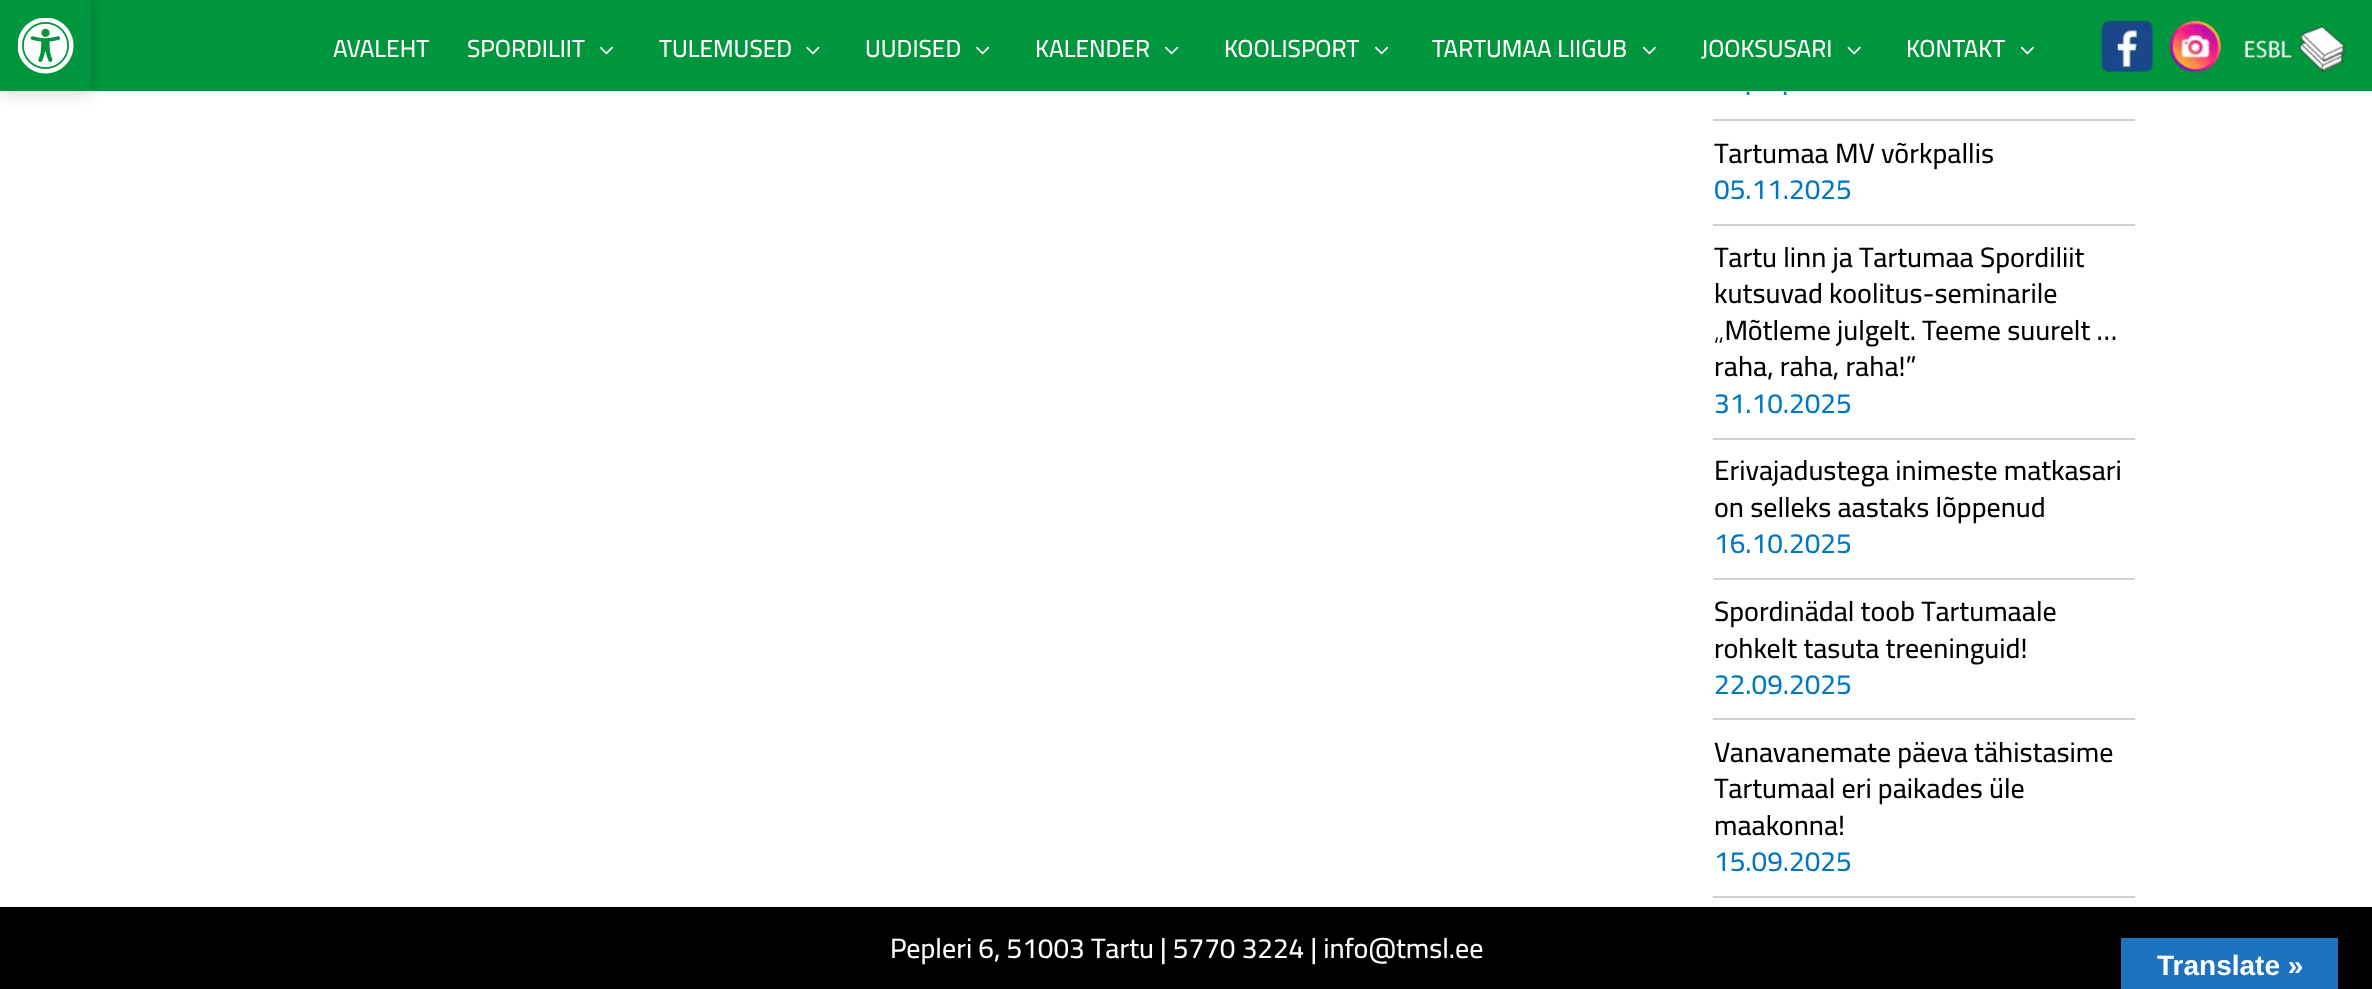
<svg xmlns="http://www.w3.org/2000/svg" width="2372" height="989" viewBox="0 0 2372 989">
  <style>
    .t1 { font: 500 24.5px Cairo; fill: #fff; }
    .t2 { font: 500 28px Cairo; fill: #0077c1; }
    .t3 { font: 500 28px Cairo; fill: #000; }
    .t4 { font: 500 28px Cairo; fill: #fff; }
    .t5 { font: bold 28px Liberation Sans; fill: #fff; }
  </style>
  <defs>
    <clipPath id="clip1"><path d="M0 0H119V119H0ZM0 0H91V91H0Z" clip-rule="evenodd"/></clipPath>
  </defs>
  <rect width="100%" height="100%" fill="#fff"/>
  <rect x="0" y="0" width="2372" height="91" fill="#00963d"/>
  <g clip-path="url(#clip1)">
    <rect x="0" y="0" width="91" height="91" fill="#00000033" filter="blur(9px)"/>
  </g>
  <image x="18" y="18" width="56" height="56" href="images/1.png"/>
  <text x="333" y="57" class="t1">AVALEHT</text>
  <text x="467" y="57" class="t1">SPORDILIIT</text>
  <image x="599" y="46" width="14" height="9" href="images/2.png"/>
  <text x="659" y="57" class="t1">TULEMUSED</text>
  <image x="806" y="46" width="14" height="9" href="images/3.png"/>
  <text x="865" y="57" class="t1">UUDISED</text>
  <image x="976" y="46" width="14" height="9" href="images/4.png"/>
  <text x="1035" y="57" class="t1">KALENDER</text>
  <image x="1165" y="46" width="14" height="9" href="images/4.png"/>
  <text x="1224" y="57" class="t1">KOOLISPORT</text>
  <image x="1375" y="46" width="14" height="9" href="images/4.png"/>
  <text x="1432" y="57" class="t1">TARTUMAA LIIGUB</text>
  <image x="1642" y="46" width="14" height="9" href="images/2.png"/>
  <text x="1701" y="57" class="t1">JOOKSUSARI</text>
  <image x="1847" y="46" width="14" height="9" href="images/5.png"/>
  <text x="1906" y="57" class="t1">KONTAKT</text>
  <image x="2020" y="46" width="14" height="9" href="images/2.png"/>
  <image x="2101" y="20" width="52" height="53" href="images/6.png"/>
  <image x="2169" y="20" width="52" height="53" href="images/7.png"/>
  <image x="2244" y="26" width="102" height="47" href="images/8.png"/>
  <rect x="1713" y="119" width="422" height="2" fill="#cfd0d1"/>
  <text x="1745" y="95" class="t2">.</text>
  <text x="1782" y="95" class="t2">.</text>
  <rect x="1713" y="224" width="422" height="2" fill="#cfd0d1"/>
  <text x="1714" y="163" class="t3">Tartumaa MV võrkpallis</text>
  <text x="1714" y="199" class="t2">05.11.2025</text>
  <rect x="1713" y="438" width="422" height="2" fill="#cfd0d1"/>
  <text x="1714" y="267" class="t3">Tartu linn ja Tartumaa Spordiliit</text>
  <text x="1714" y="303" class="t3">kutsuvad koolitus-seminarile</text>
  <text x="1714" y="340" class="t3">„Mõtleme julgelt. Teeme suurelt …</text>
  <text x="1714" y="376" class="t3">raha, raha, raha!”</text>
  <text x="1714" y="413" class="t2">31.10.2025</text>
  <rect x="1713" y="578" width="422" height="2" fill="#cfd0d1"/>
  <text x="1714" y="480" class="t3">Erivajadustega inimeste matkasari</text>
  <text x="1714" y="517" class="t3">on selleks aastaks lõppenud</text>
  <text x="1714" y="553" class="t2">16.10.2025</text>
  <rect x="1713" y="718" width="422" height="2" fill="#cfd0d1"/>
  <text x="1714" y="621" class="t3">Spordinädal toob Tartumaale</text>
  <text x="1714" y="658" class="t3">rohkelt tasuta treeninguid!</text>
  <text x="1714" y="694" class="t2">22.09.2025</text>
  <rect x="1713" y="896" width="422" height="2" fill="#cfd0d1"/>
  <text x="1714" y="762" class="t3">Vanavanemate päeva tähistasime</text>
  <text x="1714" y="798" class="t3">Tartumaal eri paikades üle</text>
  <text x="1714" y="835" class="t3">maakonna!</text>
  <text x="1714" y="871" class="t2">15.09.2025</text>
  <rect x="0" y="907" width="2372" height="82" fill="#000"/>
  <text x="890" y="958" class="t4">Pepleri 6, 51003 Tartu | 5770 3224 | info@tmsl.ee</text>
  <rect x="2121" y="938" width="217" height="51" fill="#1e73be"/>
  <text x="2157" y="975" class="t5">Translate »</text>
</svg>
